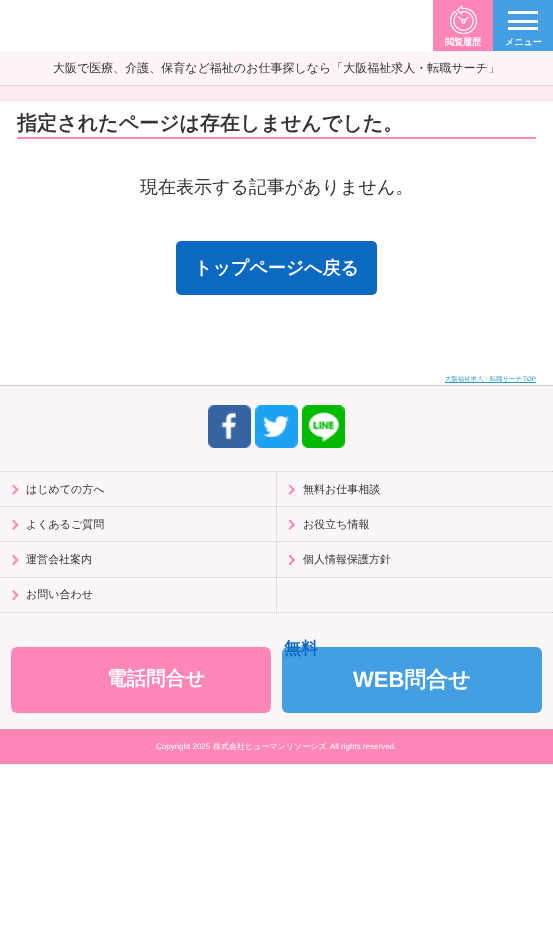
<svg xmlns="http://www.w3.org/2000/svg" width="553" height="939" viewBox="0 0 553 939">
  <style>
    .t1 { font: bold 9px WenQuanYi Zen Hei; fill: #fff; }
    .t2 { font: 500 12px WenQuanYi Zen Hei; fill: #333; }
    .t3 { font: bold 20px WenQuanYi Zen Hei; fill: #333; }
    .t4 { font: 500 18px WenQuanYi Zen Hei; fill: #333; }
    .t5 { font: bold 18px WenQuanYi Zen Hei; fill: #fff; }
    .t6 { font: 500 6.4px WenQuanYi Zen Hei; fill: #39c; }
    .t7 { font: 6.4px Liberation Sans; fill: #39c; }
    .t8 { font: 500 11px WenQuanYi Zen Hei; fill: #333; }
    .t9 { font: bold 19.5px WenQuanYi Zen Hei; fill: #fff; }
    .t10 { font: bold 17px WenQuanYi Zen Hei; fill: #0c69c1; }
    .t11 { font: bold 22px Liberation Sans; fill: #fff; }
    .t12 { font: bold 22px WenQuanYi Zen Hei; fill: #fff; }
    .t13 { font: 8px Liberation Sans; fill: #fff; }
    .t14 { font: 500 8px WenQuanYi Zen Hei; fill: #fff; }
  </style>
  <rect width="100%" height="100%" fill="#fff"/>
  <rect x="433" y="0" width="60" height="51" fill="#ff87b7"/>
  <image x="450" y="5" width="27" height="29" href="images/1.png"/>
  <text x="445" y="45" class="t1">閲覧履歴</text>
  <rect x="493" y="0" width="60" height="51" fill="#449ee3"/>
  <rect x="508" y="20" width="30" height="3" fill="#fff"/>
  <rect x="508" y="11" width="30" height="3" fill="#fff"/>
  <rect x="508" y="27" width="30" height="3" fill="#fff"/>
  <text x="505" y="45" class="t1">メニュー</text>
  <rect x="0" y="51" width="553" height="34" fill="#fff5f9"/>
  <text x="53" y="72" class="t2">大阪で医療、介護、保育など福祉のお仕事探しなら「大阪福祉求人・転職サーチ」</text>
  <rect x="0" y="86" width="553" height="16" fill="#fdecef"/>
  <rect x="0" y="85" width="553" height="1" fill="#e4d4d7"/>
  <rect x="17" y="137" width="519" height="2" fill="#ff87b7"/>
  <text x="17" y="130" class="t3">指定されたページは存在しませんでした。</text>
  <text x="140" y="193" class="t4">現在表示する記事がありません。</text>
  <rect x="176" y="241" width="201" height="54" rx="5" fill="#0c69c1"/>
  <text x="194" y="274" class="t5">トップページへ戻る</text>
  <text x="445" y="381" class="t6">大阪福祉求人・転職サーチ</text>
  <text x="523" y="381" class="t7">TOP</text>
  <rect x="445" y="382" width="91" height="1" fill="#39c"/>
  <rect x="0" y="385" width="553" height="1" fill="#ccc"/>
  <rect x="0" y="386" width="553" height="343" fill="#fdf6f6"/>
  <image x="208" y="405" width="43" height="43" href="images/2.png"/>
  <image x="255" y="405" width="43" height="43" href="images/3.png"/>
  <image x="302" y="405" width="43" height="43" href="images/4.png"/>
  <path d="M0 471.5H553" fill="none" stroke="#ccc" stroke-dasharray="1 1"/>
  <path d="M0 612.5H553" fill="none" stroke="#ccc" stroke-dasharray="1 1"/>
  <path d="M276.5 472V507" fill="none" stroke="#ccc" stroke-dasharray="1 1"/>
  <path d="M0 506.5H277" fill="none" stroke="#ccc" stroke-dasharray="1 1"/>
  <path d="M12 485.5L13.5 484.5L18.5 489.5L17 491Z" fill="#ff87b7"/>
  <path d="M12 493.5L17 488L18.5 489.5L13.5 495Z" fill="#ff87b7"/>
  <text x="26" y="493" class="t8">はじめての方へ</text>
  <path d="M277 506.5H553" fill="none" stroke="#ccc" stroke-dasharray="1 1"/>
  <path d="M288.5 485.5L290 484.5L295 489.5L293.5 491Z" fill="#ff87b7"/>
  <path d="M288.5 493.5L293.5 488L295 489.5L290 495Z" fill="#ff87b7"/>
  <text x="303" y="493" class="t8">無料お仕事相談</text>
  <path d="M276.5 507V542" fill="none" stroke="#ccc" stroke-dasharray="1 1"/>
  <path d="M0 541.5H277" fill="none" stroke="#ccc" stroke-dasharray="1 1"/>
  <path d="M12 521L13.5 519.5L18.5 525L17 526Z" fill="#ff87b7"/>
  <path d="M12 528.5L17 523.5L18.5 525L13.5 530Z" fill="#ff87b7"/>
  <text x="26" y="528" class="t8">よくあるご質問</text>
  <path d="M277 541.5H553" fill="none" stroke="#ccc" stroke-dasharray="1 1"/>
  <path d="M288.5 521L290 519.5L295 525L293.5 526Z" fill="#ff87b7"/>
  <path d="M288.5 528.5L293.5 523.5L295 525L290 530Z" fill="#ff87b7"/>
  <text x="303" y="528" class="t8">お役立ち情報</text>
  <path d="M276.5 542V578" fill="none" stroke="#ccc" stroke-dasharray="1 1"/>
  <path d="M0 577.5H277" fill="none" stroke="#ccc" stroke-dasharray="1 1"/>
  <path d="M12 556L13.5 554.5L18.5 560L17 561.5Z" fill="#ff87b7"/>
  <path d="M12 564L17 558.5L18.5 560L13.5 565.5Z" fill="#ff87b7"/>
  <text x="26" y="563" class="t8">運営会社案内</text>
  <path d="M277 577.5H553" fill="none" stroke="#ccc" stroke-dasharray="1 1"/>
  <path d="M288.5 556L290 554.5L295 560L293.5 561.5Z" fill="#ff87b7"/>
  <path d="M288.5 564L293.5 558.5L295 560L290 565.5Z" fill="#ff87b7"/>
  <text x="303" y="563" class="t8">個人情報保護方針</text>
  <path d="M276.5 578V612" fill="none" stroke="#ccc" stroke-dasharray="1 1"/>
  <path d="M12 591.5L13.5 590L18.5 595L17 596.5Z" fill="#ff87b7"/>
  <path d="M12 599L17 594L18.5 595L13.5 600.5Z" fill="#ff87b7"/>
  <text x="26" y="598" class="t8">お問い合わせ</text>
  <rect x="11" y="647" width="260" height="66" rx="6" fill="#ff87b7"/>
  <text x="107" y="685" class="t9">電話問合せ</text>
  <rect x="282" y="647" width="260" height="66" rx="6" fill="#449ee3"/>
  <text x="284" y="654" class="t10">無料</text>
  <text x="353" y="687" class="t11">WEB</text>
  <text x="404" y="687" class="t12">問合せ</text>
  <rect x="0" y="729" width="553" height="35" fill="#ff87b7"/>
  <text x="156" y="749" class="t13">Copyright 2025</text>
  <text x="213" y="749" class="t14">株式会社ヒューマンリソーシズ</text>
  <text x="326" y="749" class="t13">. All rights reserved.</text>
</svg>
